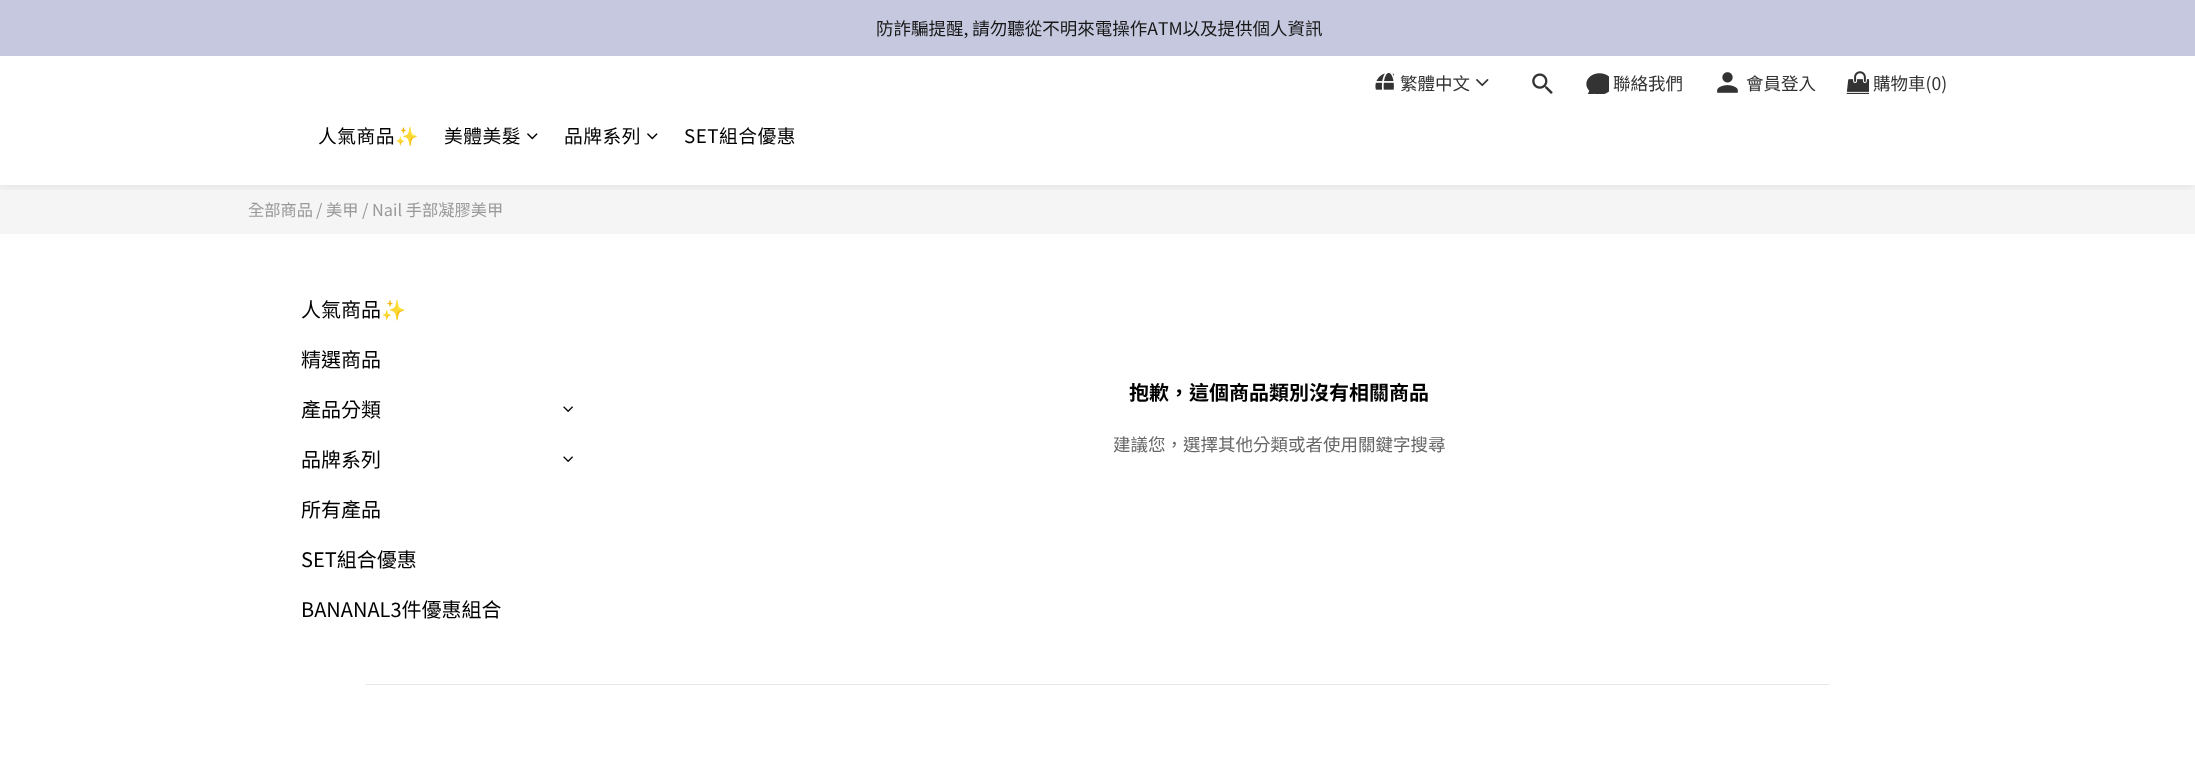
<svg xmlns="http://www.w3.org/2000/svg" width="2195" height="766" viewBox="0 0 2195 766">
  <style>*{font-kerning:none!important;font-variant-ligatures:none!important}</style>
  <style>
    .t1 { font: 17.5px Noto Sans TC; fill: #181818; }
    .t2 { font: 17.5px Noto Sans TC; fill: #333; }
    .t3 { font: 18.75px Noto Sans TC; letter-spacing: 0.5px; fill: #000; }
    .t4 { font: 18.75px Noto Color Emoji; letter-spacing: 0.5px; fill: #000; }
    .t5 { font: 16.25px Noto Sans TC; fill: #999; }
    .t6 { font: 20px Noto Sans TC; fill: #000; }
    .t7 { font: 20px Noto Color Emoji; fill: #000; }
    .t8 { font: bold 20px Noto Sans TC; fill: #000; }
    .t9 { font: 17.5px Noto Sans TC; fill: #666; }
  </style>
  <defs>
    <clipPath id="clip1"><rect x="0" y="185" width="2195" height="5"/></clipPath>
  </defs>
  <rect width="100%" height="100%" fill="#fff"/>
  <rect x="0" y="0" width="2195" height="56" fill="#c5c8de"/>
  <text x="876" y="35" class="t1">防詐騙提醒, 請勿聽從不明來電操作ATM以及提供個人資訊</text>
  <rect x="0" y="185" width="2195" height="49" fill="#f5f5f5"/>
  <g clip-path="url(#clip1)">
    <rect x="0" y="59" width="2195" height="129" fill="#0000000f" filter="blur(4px)"/>
  </g>
  <image x="1375" y="73" width="19" height="17" href="images/1.png"/>
  <text x="1400" y="90" class="t2">繁體中文</text>
  <image x="1476" y="79" width="13" height="8" href="images/2.png"/>
  <image x="1532" y="73" width="21" height="21" href="images/3.png"/>
  <image x="1586" y="73" width="23" height="21" href="images/4.png"/>
  <text x="1613" y="90" class="t2">聯絡我們</text>
  <image x="1717" y="72" width="21" height="21" href="images/5.png"/>
  <text x="1746" y="90" class="t2">會員登入</text>
  <image x="1846" y="71" width="23" height="23" href="images/6.png"/>
  <text x="1873" y="90" class="t2">購物車(0)</text>
  <text x="318" y="143" class="t3">人氣商品</text>
  <text x="395" y="143" class="t4">✨</text>
  <text x="444" y="143" class="t3">美體美髮</text>
  <image x="527" y="133" width="11" height="7" href="images/7.png"/>
  <text x="564" y="143" class="t3">品牌系列</text>
  <image x="647" y="133" width="11" height="7" href="images/7.png"/>
  <text x="684" y="143" class="t3">SET組合優惠</text>
  <text x="248" y="216" class="t5">全部商品</text>
  <text x="316" y="216" class="t5">/ 美甲</text>
  <text x="362" y="216" class="t5">/ Nail 手部凝膠美甲</text>
  <text x="301" y="317" class="t6">人氣商品</text>
  <text x="381" y="317" class="t7">✨</text>
  <text x="301" y="367" class="t6">精選商品</text>
  <text x="301" y="417" class="t6">產品分類</text>
  <image x="563" y="406" width="10" height="6" href="images/8.png"/>
  <text x="301" y="467" class="t6">品牌系列</text>
  <image x="563" y="456" width="10" height="6" href="images/8.png"/>
  <text x="301" y="517" class="t6">所有產品</text>
  <text x="301" y="567" class="t6">SET組合優惠</text>
  <text x="301" y="617" class="t6">BANANAL3件優惠組合</text>
  <text x="1129" y="400" class="t8">抱歉，這個商品類別沒有相關商品</text>
  <text x="1113" y="451" class="t9">建議您，選擇其他分類或者使用關鍵字搜尋</text>
  <rect x="366" y="684" width="1463" height="1" fill="#e6e6e6"/>
</svg>
